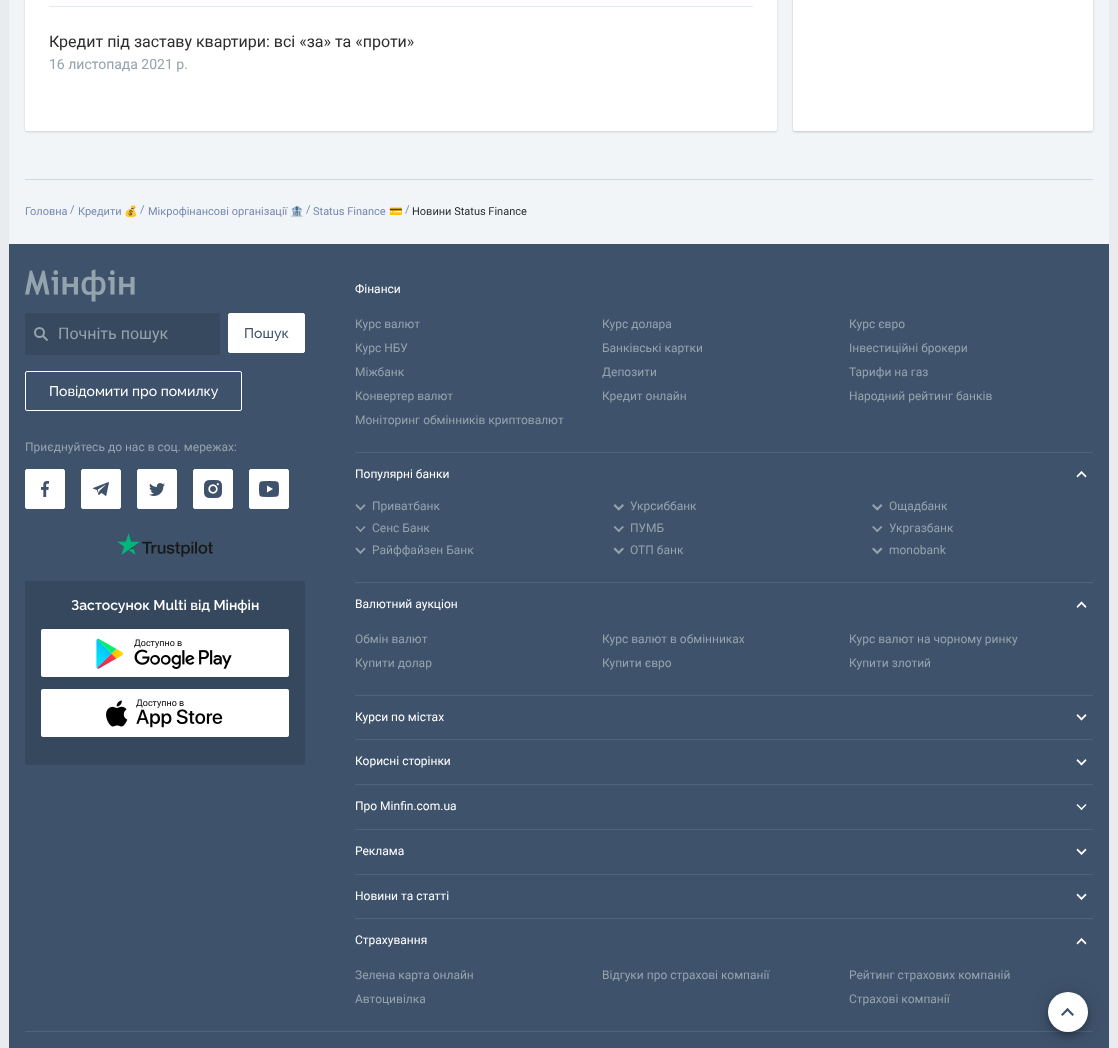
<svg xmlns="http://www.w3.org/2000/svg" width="1118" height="1048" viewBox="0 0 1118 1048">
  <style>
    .t1 { font: 16px Roboto; fill: #2d2d2d; }
    .t2 { font: 14px Roboto; fill: #93a4ac; }
    .t3 { font: 11px Roboto; fill: #7788b0; }
    .t4 { font: 11px Noto Color Emoji; fill: #7788b0; }
    .t5 { font: 11px Roboto; fill: #2d2d2d; }
    .t6 { font: 16px Roboto; fill: #93a4ac; }
    .t7 { font: 500 14px Raleway; fill: #3e526b; }
    .t8 { font: 500 14px Raleway; fill: #fff; }
    .t9 { font: 12px Roboto; fill: #93a4ac; }
    .t10 { font: 600 14px Raleway; fill: #fff; }
    .t11 { font: 9px Roboto; fill: #000; }
    .t12 { font: 12px Roboto; fill: #fff; }
  </style>
  <rect width="100%" height="100%" fill="#e9ebee"/>
  <rect x="9" y="0" width="1100" height="244" fill="#f2f5f8"/>
  <rect x="25" y="-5" width="752" height="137" rx="2" fill="#00000024" filter="blur(1px)"/>
  <rect x="25" y="-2" width="752" height="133" rx="2" fill="#fff"/>
  <rect x="49" y="6" width="704" height="1" fill="#e4eaf4"/>
  <text x="49" y="47" class="t1">Кредит під заставу квартири: всі «за» та «проти»</text>
  <text x="49" y="69" class="t2">16 листопада 2021 р.</text>
  <rect x="793" y="-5" width="300" height="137" rx="2" fill="#00000024" filter="blur(1px)"/>
  <rect x="793" y="-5" width="300" height="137" rx="2" fill="#0000000f" filter="blur(1px)"/>
  <rect x="793" y="-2" width="300" height="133" rx="2" fill="#fff"/>
  <rect x="25" y="179" width="1068" height="1" fill="#cdd7e7"/>
  <text x="25" y="215" class="t3">Головна</text>
  <text x="70" y="213" class="t3">/</text>
  <text x="78" y="215" class="t3">Кредити</text>
  <text x="124" y="215" class="t4">💰</text>
  <text x="140" y="213" class="t3">/</text>
  <text x="148" y="215" class="t3">Мікрофінансові організації</text>
  <text x="290" y="215" class="t4">🏦</text>
  <text x="306" y="213" class="t3">/</text>
  <text x="313" y="215" class="t3">Status Finance</text>
  <text x="389" y="215" class="t4">💳</text>
  <text x="405" y="213" class="t3">/</text>
  <text x="412" y="215" class="t5">Новини Status Finance</text>
  <rect x="9" y="244" width="1100" height="804" fill="#3e526b"/>
  <image x="25" y="269" width="110" height="33" href="images/1.png"/>
  <rect x="25.5" y="313.5" width="194" height="41" rx="1.5" fill="#36495e" stroke="#36495e"/>
  <circle cx="39.5" cy="332.5" r="4.5" fill="none" stroke="#93a4ac" stroke-width="2"/>
  <path d="M43 336L47.5 340.5" fill="none" stroke="#93a4ac" stroke-width="2"/>
  <text x="58" y="339" class="t6">Почніть пошук</text>
  <rect x="228.5" y="313.5" width="76" height="39" rx="1.5" fill="#fff" stroke="#fff"/>
  <text x="244" y="338" class="t7">Пошук</text>
  <rect x="25.5" y="371.5" width="216" height="39" rx="1.5" fill="none" stroke="#fff"/>
  <text x="49" y="396" class="t8">Повідомити про помилку</text>
  <text x="25" y="451" class="t9">Приєднуйтесь до нас в соц. мережах:</text>
  <rect x="25.5" y="469.5" width="39" height="39" rx="1.5" fill="#fff" stroke="#fff"/>
  <image x="41" y="481" width="8" height="16" href="images/2.png"/>
  <rect x="81.5" y="469.5" width="39" height="39" rx="1.5" fill="#fff" stroke="#fff"/>
  <image x="93" y="482" width="16" height="14" href="images/3.png"/>
  <rect x="137.5" y="469.5" width="39" height="39" rx="1.5" fill="#fff" stroke="#fff"/>
  <image x="149" y="483" width="16" height="13" href="images/4.png"/>
  <rect x="193.5" y="469.5" width="39" height="39" rx="1.5" fill="#fff" stroke="#fff"/>
  <image x="204" y="480" width="18" height="18" href="images/5.png"/>
  <rect x="249.5" y="469.5" width="39" height="39" rx="1.5" fill="#fff" stroke="#fff"/>
  <image x="259" y="481" width="20" height="16" href="images/6.png"/>
  <image x="117" y="533" width="96" height="24" href="images/7.png"/>
  <rect x="25" y="581" width="280" height="184" rx="2" fill="#36485e"/>
  <text x="71" y="610" class="t10">Застосунок Multi від Мінфін</text>
  <rect x="41" y="629" width="248" height="48" rx="2" fill="#fff"/>
  <image x="96" y="638" width="28" height="31" href="images/8.png"/>
  <text x="134" y="646" class="t11">Доступно в</text>
  <image x="134" y="649" width="98" height="20" href="images/9.png"/>
  <rect x="41" y="689" width="248" height="48" rx="2" fill="#fff"/>
  <image x="106" y="700" width="22" height="27" href="images/10.png"/>
  <text x="136" y="706" class="t11">Доступно в</text>
  <image x="136" y="709" width="87" height="19" href="images/11.png"/>
  <text x="355" y="293" class="t12">Фінанси</text>
  <text x="355" y="328" class="t9">Курс валют</text>
  <text x="602" y="328" class="t9">Курс долара</text>
  <text x="849" y="328" class="t9">Курс євро</text>
  <text x="355" y="352" class="t9">Курс НБУ</text>
  <text x="602" y="352" class="t9">Банківські картки</text>
  <text x="849" y="352" class="t9">Інвестиційні брокери</text>
  <text x="355" y="376" class="t9">Міжбанк</text>
  <text x="602" y="376" class="t9">Депозити</text>
  <text x="849" y="376" class="t9">Тарифи на газ</text>
  <text x="355" y="400" class="t9">Конвертер валют</text>
  <text x="602" y="400" class="t9">Кредит онлайн</text>
  <text x="849" y="400" class="t9">Народний рейтинг банків</text>
  <text x="355" y="424" class="t9">Моніторинг обмінників криптовалют</text>
  <rect x="355" y="452" width="738" height="1" fill="#51637a"/>
  <text x="355" y="478" class="t12">Популярні банки</text>
  <path d="M1081.5 471L1086.5 476L1085.5 477.5L1080.5 472.5Z" fill="#fff"/>
  <path d="M1076.5 476L1081.5 471L1082.5 472.5L1077.5 477.5Z" fill="#fff"/>
  <path d="M359.5 509L364.5 504L365.5 505.5L360.5 510.5Z" fill="#93a4ac"/>
  <path d="M356.5 504L361.5 509L360.5 510.5L355.5 505.5Z" fill="#93a4ac"/>
  <text x="372" y="510" class="t9">Приватбанк</text>
  <path d="M617.5 509L622.5 504L624 505.5L619 510.5Z" fill="#93a4ac"/>
  <path d="M615 504L620 509L618.5 510.5L613.5 505.5Z" fill="#93a4ac"/>
  <text x="630" y="510" class="t9">Укрсиббанк</text>
  <path d="M876 509L881 504L882.5 505.5L877.5 510.5Z" fill="#93a4ac"/>
  <path d="M873.5 504L878.5 509L877 510.5L872 505.5Z" fill="#93a4ac"/>
  <text x="889" y="510" class="t9">Ощадбанк</text>
  <path d="M359.5 531L364.5 526L365.5 527L360.5 532Z" fill="#93a4ac"/>
  <path d="M356.5 526L361.5 531L360.5 532L355.5 527Z" fill="#93a4ac"/>
  <text x="372" y="532" class="t9">Сенс Банк</text>
  <path d="M617.5 531L622.5 526L624 527L619 532Z" fill="#93a4ac"/>
  <path d="M615 526L620 531L618.5 532L613.5 527Z" fill="#93a4ac"/>
  <text x="630" y="532" class="t9">ПУМБ</text>
  <path d="M876 531L881 526L882.5 527L877.5 532Z" fill="#93a4ac"/>
  <path d="M873.5 526L878.5 531L877 532L872 527Z" fill="#93a4ac"/>
  <text x="889" y="532" class="t9">Укргазбанк</text>
  <path d="M359.5 552.5L364.5 547.5L365.5 549L360.5 554Z" fill="#93a4ac"/>
  <path d="M356.5 547.5L361.5 552.5L360.5 554L355.5 549Z" fill="#93a4ac"/>
  <text x="372" y="554" class="t9">Райффайзен Банк</text>
  <path d="M617.5 552.5L622.5 547.5L624 549L619 554Z" fill="#93a4ac"/>
  <path d="M615 547.5L620 552.5L618.5 554L613.5 549Z" fill="#93a4ac"/>
  <text x="630" y="554" class="t9">ОТП банк</text>
  <path d="M876 552.5L881 547.5L882.5 549L877.5 554Z" fill="#93a4ac"/>
  <path d="M873.5 547.5L878.5 552.5L877 554L872 549Z" fill="#93a4ac"/>
  <text x="889" y="554" class="t9">monobank</text>
  <rect x="355" y="582" width="738" height="1" fill="#51637a"/>
  <text x="355" y="608" class="t12">Валютний аукціон</text>
  <path d="M1081.5 601.5L1086.5 606.5L1085.5 608L1080.5 603Z" fill="#fff"/>
  <path d="M1076.5 606.5L1081.5 601.5L1082.5 603L1077.5 608Z" fill="#fff"/>
  <text x="355" y="643" class="t9">Обмін валют</text>
  <text x="602" y="643" class="t9">Курс валют в обмінниках</text>
  <text x="849" y="643" class="t9">Курс валют на чорному ринку</text>
  <text x="355" y="667" class="t9">Купити долар</text>
  <text x="602" y="667" class="t9">Купити євро</text>
  <text x="849" y="667" class="t9">Купити злотий</text>
  <rect x="355" y="695" width="738" height="1" fill="#51637a"/>
  <text x="355" y="721" class="t12">Курси по містах</text>
  <path d="M1080.5 719L1085.5 714L1086.5 715.5L1081.5 720.5Z" fill="#fff"/>
  <path d="M1077.5 714L1082.5 719L1081.5 720.5L1076.5 715.5Z" fill="#fff"/>
  <rect x="355" y="739" width="738" height="1" fill="#51637a"/>
  <text x="355" y="765" class="t12">Корисні сторінки</text>
  <path d="M1080.5 764L1085.5 759L1086.5 760.5L1081.5 765.5Z" fill="#fff"/>
  <path d="M1077.5 759L1082.5 764L1081.5 765.5L1076.5 760.5Z" fill="#fff"/>
  <rect x="355" y="784" width="738" height="1" fill="#51637a"/>
  <text x="355" y="810" class="t12">Про Minfin.com.ua</text>
  <path d="M1080.5 809L1085.5 804L1086.5 805L1081.5 810Z" fill="#fff"/>
  <path d="M1077.5 804L1082.5 809L1081.5 810L1076.5 805Z" fill="#fff"/>
  <rect x="355" y="829" width="738" height="1" fill="#51637a"/>
  <text x="355" y="855" class="t12">Реклама</text>
  <path d="M1080.5 853.5L1085.5 848.5L1086.5 850L1081.5 855Z" fill="#fff"/>
  <path d="M1077.5 848.5L1082.5 853.5L1081.5 855L1076.5 850Z" fill="#fff"/>
  <rect x="355" y="874" width="738" height="1" fill="#51637a"/>
  <text x="355" y="900" class="t12">Новини та статті</text>
  <path d="M1080.5 898.5L1085.5 893.5L1086.5 895L1081.5 900Z" fill="#fff"/>
  <path d="M1077.5 893.5L1082.5 898.5L1081.5 900L1076.5 895Z" fill="#fff"/>
  <rect x="355" y="918" width="738" height="1" fill="#51637a"/>
  <text x="355" y="944" class="t12">Страхування</text>
  <path d="M1081.5 938L1086.5 943L1085.5 944.5L1080.5 939.5Z" fill="#fff"/>
  <path d="M1076.5 943L1081.5 938L1082.5 939.5L1077.5 944.5Z" fill="#fff"/>
  <text x="355" y="979" class="t9">Зелена карта онлайн</text>
  <text x="602" y="979" class="t9">Відгуки про страхові компанії</text>
  <text x="849" y="979" class="t9">Рейтинг страхових компаній</text>
  <text x="355" y="1003" class="t9">Автоцивілка</text>
  <text x="849" y="1003" class="t9">Страхові компанії</text>
  <rect x="25" y="1031" width="1068" height="1" fill="#51637a"/>
  <rect x="1048" y="993" width="40" height="40" rx="20" fill="#0000001f" filter="blur(9px)"/>
  <rect x="1048" y="998" width="40" height="40" rx="20" fill="#00000024" filter="blur(5px)"/>
  <rect x="1049" y="996" width="38" height="38" rx="19" fill="#00000033" filter="blur(2.5px)"/>
  <circle cx="1068" cy="1012" r="20" fill="#fff"/>
  <path d="M1067.5 1008L1074 1014.5L1072.5 1016L1066 1009.5Z" fill="#3e526b"/>
  <path d="M1067.5 1008L1069 1009.5L1062.5 1016L1061 1014.5Z" fill="#3e526b"/>
</svg>
